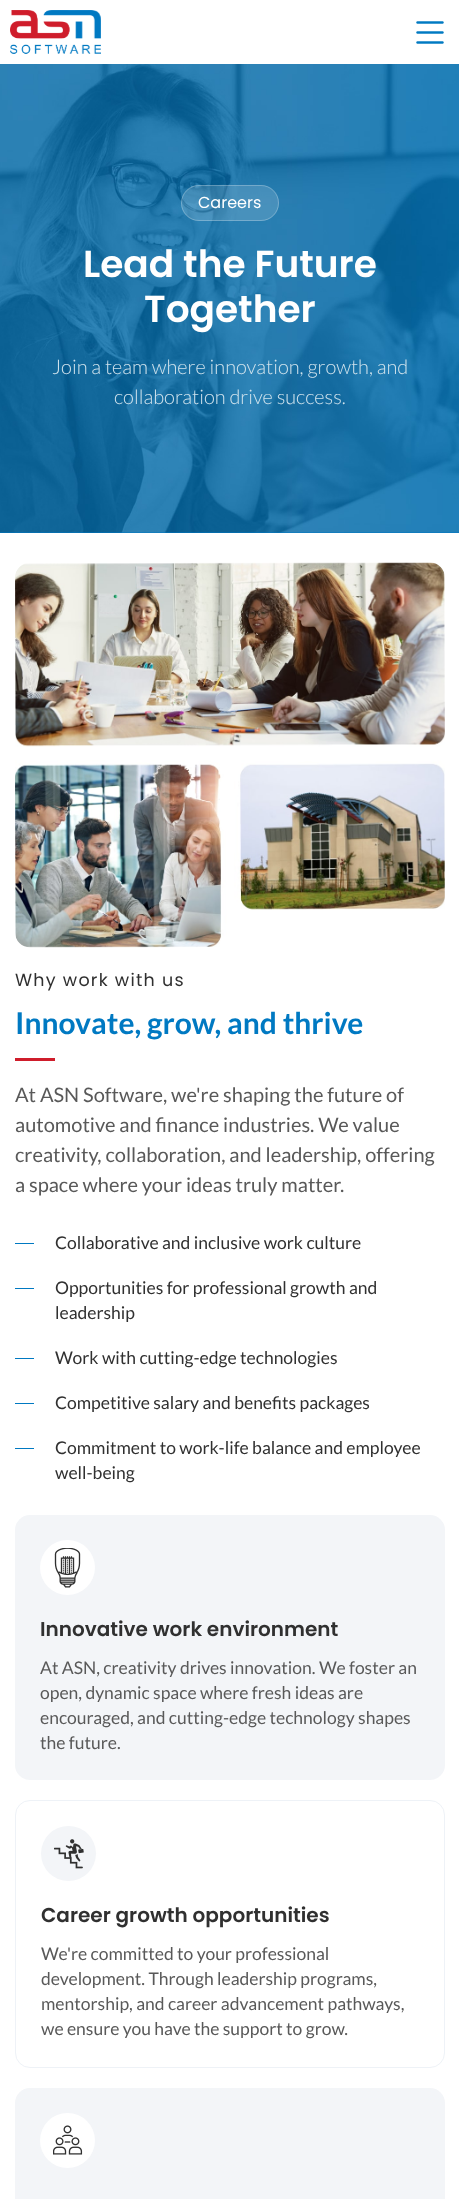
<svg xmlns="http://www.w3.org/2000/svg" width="459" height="2199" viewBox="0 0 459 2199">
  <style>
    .t1 { font: 16px Poppins; fill: #fff; }
    .t2 { font: 600 37.5px Poppins; fill: #fff; }
    .t3 { font: 300 20px Lato; fill: #d1e3ed; }
    .t4 { font: 17.5px Poppins; letter-spacing: 1.25px; fill: #303030; }
    .t5 { font: bold 30px Lato; fill: #0079c2; }
    .t6 { font: 20px Lato; fill: #595959; }
    .t7 { font: 17.5px Lato; fill: #303030; }
    .t8 { font: 600 20px Poppins; fill: #303030; }
    .t9 { font: 17.5px Lato; fill: #595959; }
  </style>
  <rect width="100%" height="100%" fill="#fff"/>
  <image x="10" y="10" width="91" height="44" href="images/1.png"/>
  <image x="416" y="21" width="28" height="23" href="images/2.png"/>
  <rect x="0" y="532" width="459" height="1" fill="#0079c2"/>
  <image x="0" y="64" width="459" height="469" href="images/3.png"/>
  <rect x="181" y="185" width="98" height="36" rx="18" fill="#ffffff26"/>
  <rect x="181.5" y="185.5" width="97" height="35" rx="17.5" fill="none" stroke="#ffffff40"/>
  <text x="198" y="208" class="t1">Careers</text>
  <text x="83" y="277" class="t2">Lead the Future</text>
  <text x="144" y="322" class="t2">Together</text>
  <text x="52" y="374" class="t3">Join a team where innovation, growth, and</text>
  <text x="114" y="404" class="t3">collaboration drive success.</text>
  <image x="15" y="562" width="430" height="386" href="images/4.png"/>
  <text x="15" y="986" class="t4">Why work with us</text>
  <text x="15" y="1034" class="t5">Innovate, grow, and thrive</text>
  <rect x="15" y="1058" width="40" height="3" fill="#cf1d2b"/>
  <text x="15" y="1102" class="t6">At ASN Software, we're shaping the future of</text>
  <text x="15" y="1132" class="t6">automotive and finance industries. We value</text>
  <text x="15" y="1162" class="t6">creativity, collaboration, and leadership, offering</text>
  <text x="15" y="1192" class="t6">a space where your ideas truly matter.</text>
  <rect x="15" y="1243" width="19" height="1" fill="#0079c2"/>
  <text x="55" y="1249" class="t7">Collaborative and inclusive work culture</text>
  <rect x="15" y="1288" width="19" height="1" fill="#0079c2"/>
  <text x="55" y="1294" class="t7">Opportunities for professional growth and</text>
  <text x="55" y="1319" class="t7">leadership</text>
  <rect x="15" y="1358" width="19" height="1" fill="#0079c2"/>
  <text x="55" y="1364" class="t7">Work with cutting-edge technologies</text>
  <rect x="15" y="1403" width="19" height="1" fill="#0079c2"/>
  <text x="55" y="1409" class="t7">Competitive salary and benefits packages</text>
  <rect x="15" y="1448" width="19" height="1" fill="#0079c2"/>
  <text x="55" y="1454" class="t7">Commitment to work-life balance and employee</text>
  <text x="55" y="1479" class="t7">well-being</text>
  <rect x="15" y="1515" width="430" height="265" rx="15" fill="#f3f5f8"/>
  <circle cx="67.5" cy="1567.5" r="27.5" fill="#fff"/>
  <image x="54" y="1548" width="27" height="40" href="images/5.png"/>
  <text x="40" y="1636" class="t8">Innovative work environment</text>
  <text x="40" y="1674" class="t9">At ASN, creativity drives innovation. We foster an</text>
  <text x="40" y="1699" class="t9">open, dynamic space where fresh ideas are</text>
  <text x="40" y="1724" class="t9">encouraged, and cutting-edge technology shapes</text>
  <text x="40" y="1749" class="t9">the future.</text>
  <rect x="15.5" y="1800.5" width="429" height="267" rx="14.5" fill="none" stroke="#eef2f7"/>
  <circle cx="68.5" cy="1853.5" r="27.5" fill="#f3f5f8"/>
  <image x="54" y="1839" width="30" height="30" href="images/6.png"/>
  <text x="41" y="1922" class="t8">Career growth opportunities</text>
  <text x="41" y="1960" class="t9">We're committed to your professional</text>
  <text x="41" y="1985" class="t9">development. Through leadership programs,</text>
  <text x="41" y="2010" class="t9">mentorship, and career advancement pathways,</text>
  <text x="41" y="2035" class="t9">we ensure you have the support to grow.</text>
  <rect x="15" y="2088" width="430" height="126" rx="15" fill="#f3f5f8"/>
  <circle cx="67.5" cy="2140.5" r="27.5" fill="#fff"/>
  <image x="53" y="2125" width="30" height="30" href="images/7.png"/>
</svg>
